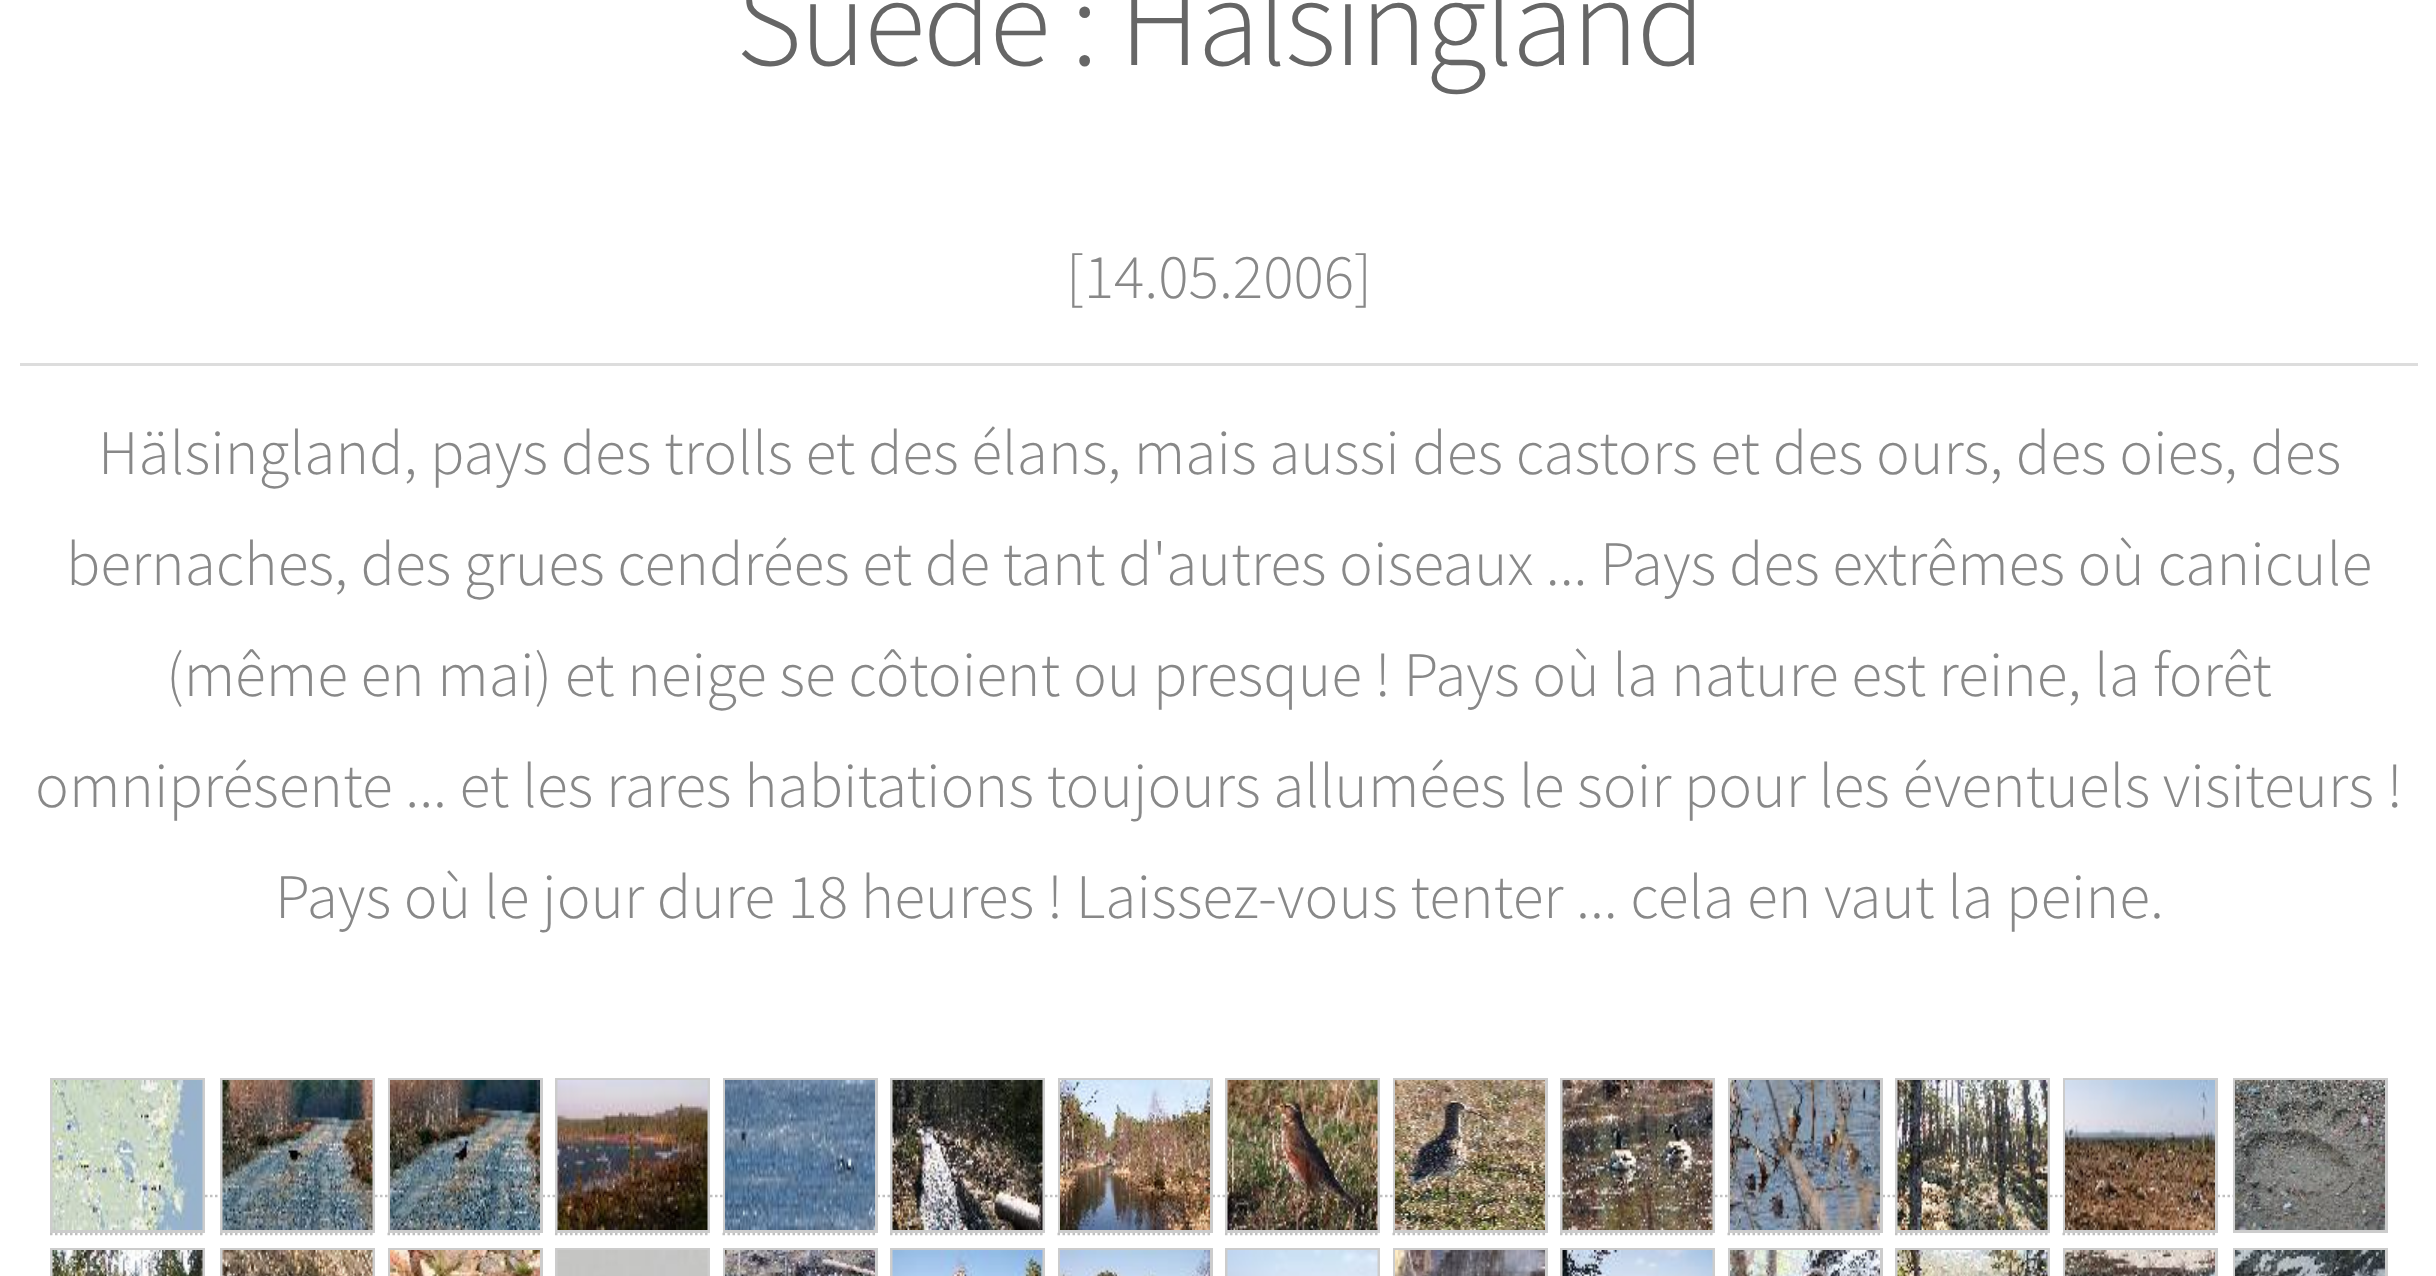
<svg xmlns="http://www.w3.org/2000/svg" width="2436" height="1276" viewBox="0 0 2436 1276">
  <style>
    .t1 { font: 300 126.75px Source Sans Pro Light; letter-spacing: -2.5px; fill: #666; }
    .t2 { font: 300 63.35px Source Sans Pro Light; fill: #888; }
  </style>
  <rect width="100%" height="100%" fill="#fff"/>
  <text x="736" y="65" class="t1">Suède : Hälsingland</text>
  <text x="1066" y="298" class="t2">[14.05.2006]</text>
  <rect x="20" y="363" width="2398" height="3" fill="#ddd"/>
  <text x="98" y="474" class="t2">Hälsingland, pays des trolls et des élans, mais aussi des castors et des ours, des oies, des</text>
  <text x="66" y="585" class="t2">bernaches, des grues cendrées et de tant d'autres oiseaux ... Pays des extrêmes où canicule</text>
  <text x="166" y="696" class="t2">(même en mai) et neige se côtoient ou presque ! Pays où la nature est reine, la forêt</text>
  <text x="35" y="807" class="t2">omniprésente ... et les rares habitations toujours allumées le soir pour les éventuels visiteurs !</text>
  <text x="275" y="918" class="t2">Pays où le jour dure 18 heures ! Laissez-vous tenter ... cela en vaut la peine.</text>
  <path d="M50 1234H205" fill="none" stroke="#c0c0c0" stroke-width="2.5" stroke-dasharray="2.5 2.5"/>
  <rect x="51.5" y="1079.5" width="152" height="152" fill="none" stroke="#ccc" stroke-width="3"/>
  <path d="M220 1234H375" fill="none" stroke="#c0c0c0" stroke-width="2.5" stroke-dasharray="2.5 2.5"/>
  <rect x="221.5" y="1079.5" width="152" height="152" fill="none" stroke="#ccc" stroke-width="3"/>
  <path d="M542.5 1196H545M547.5 1196H550M552.5 1196H555" fill="none" stroke="#c0c0c0" stroke-width="2.5"/>
  <path d="M387.5 1234H542.5" fill="none" stroke="#c0c0c0" stroke-width="2.5" stroke-dasharray="2.5 2.5"/>
  <rect x="389.5" y="1079.5" width="152" height="152" fill="none" stroke="#ccc" stroke-width="3"/>
  <path d="M555 1234H710" fill="none" stroke="#c0c0c0" stroke-width="2.5" stroke-dasharray="2.5 2.5"/>
  <rect x="556.5" y="1079.5" width="152" height="152" fill="none" stroke="#ccc" stroke-width="3"/>
  <path d="M877.5 1196H880M882.5 1196H885M887.5 1196H890" fill="none" stroke="#c0c0c0" stroke-width="2.5"/>
  <path d="M722.5 1234H877.5" fill="none" stroke="#c0c0c0" stroke-width="2.5" stroke-dasharray="2.5 2.5"/>
  <rect x="724.5" y="1079.5" width="152" height="152" fill="none" stroke="#ccc" stroke-width="3"/>
  <path d="M890 1234H1045" fill="none" stroke="#c0c0c0" stroke-width="2.5" stroke-dasharray="2.5 2.5"/>
  <rect x="891.5" y="1079.5" width="152" height="152" fill="none" stroke="#ccc" stroke-width="3"/>
  <path d="M1212.5 1196H1215M1217.5 1196H1220M1222.5 1196H1225" fill="none" stroke="#c0c0c0" stroke-width="2.5"/>
  <path d="M1057.5 1234H1212.5" fill="none" stroke="#c0c0c0" stroke-width="2.5" stroke-dasharray="2.5 2.5"/>
  <rect x="1059.5" y="1079.5" width="152" height="152" fill="none" stroke="#ccc" stroke-width="3"/>
  <path d="M1225 1234H1380" fill="none" stroke="#c0c0c0" stroke-width="2.5" stroke-dasharray="2.5 2.5"/>
  <rect x="1226.5" y="1079.5" width="152" height="152" fill="none" stroke="#ccc" stroke-width="3"/>
  <path d="M1547.5 1196H1550M1552.5 1196H1555M1557.5 1196H1560" fill="none" stroke="#c0c0c0" stroke-width="2.5"/>
  <path d="M1392.5 1234H1547.5" fill="none" stroke="#c0c0c0" stroke-width="2.5" stroke-dasharray="2.5 2.5"/>
  <rect x="1394.5" y="1079.5" width="152" height="152" fill="none" stroke="#ccc" stroke-width="3"/>
  <path d="M1560 1234H1715" fill="none" stroke="#c0c0c0" stroke-width="2.5" stroke-dasharray="2.5 2.5"/>
  <rect x="1561.5" y="1079.5" width="152" height="152" fill="none" stroke="#ccc" stroke-width="3"/>
  <path d="M1882.5 1196H1885M1887.5 1196H1890M1892.5 1196H1895" fill="none" stroke="#c0c0c0" stroke-width="2.5"/>
  <path d="M1727.5 1234H1882.5" fill="none" stroke="#c0c0c0" stroke-width="2.5" stroke-dasharray="2.5 2.5"/>
  <rect x="1729.5" y="1079.5" width="152" height="152" fill="none" stroke="#ccc" stroke-width="3"/>
  <path d="M1895 1234H2050" fill="none" stroke="#c0c0c0" stroke-width="2.5" stroke-dasharray="2.5 2.5"/>
  <rect x="1896.5" y="1079.5" width="152" height="152" fill="none" stroke="#ccc" stroke-width="3"/>
  <path d="M2217.5 1196H2220M2222.5 1196H2225M2227.5 1196H2230" fill="none" stroke="#c0c0c0" stroke-width="2.5"/>
  <path d="M2062.5 1234H2217.5" fill="none" stroke="#c0c0c0" stroke-width="2.5" stroke-dasharray="2.5 2.5"/>
  <rect x="2064.5" y="1079.5" width="152" height="152" fill="none" stroke="#ccc" stroke-width="3"/>
  <path d="M2232.5 1196H2387.5" fill="none" stroke="#c0c0c0" stroke-width="2.5" stroke-dasharray="2.5 2.5"/>
  <rect x="2234.5" y="1079.5" width="152" height="152" fill="none" stroke="#ccc" stroke-width="3"/>
  <image x="52" y="1080" width="151" height="150" href="images/1.png"/>
  <path d="M205 1196H207.5M210 1196H212.5M215 1196H217.5" fill="none" stroke="#c0c0c0" stroke-width="2.5"/>
  <image x="222" y="1080" width="151" height="150" href="images/2.png"/>
  <path d="M375 1196H377.5M380 1196H382.5M385 1196H387.5" fill="none" stroke="#c0c0c0" stroke-width="2.5"/>
  <image x="390" y="1080" width="150" height="150" href="images/3.png"/>
  <image x="557" y="1080" width="151" height="150" href="images/4.png"/>
  <path d="M710 1196H712.5M715 1196H717.5M720 1196H722.5" fill="none" stroke="#c0c0c0" stroke-width="2.5"/>
  <image x="725" y="1080" width="150" height="150" href="images/5.png"/>
  <image x="892" y="1080" width="151" height="150" href="images/6.png"/>
  <path d="M1045 1196H1047.5M1050 1196H1052.5M1055 1196H1057.5" fill="none" stroke="#c0c0c0" stroke-width="2.5"/>
  <image x="1060" y="1080" width="150" height="150" href="images/7.png"/>
  <image x="1227" y="1080" width="151" height="150" href="images/8.png"/>
  <path d="M1380 1196H1382.5M1385 1196H1387.5M1390 1196H1392.5" fill="none" stroke="#c0c0c0" stroke-width="2.5"/>
  <image x="1395" y="1080" width="150" height="150" href="images/9.png"/>
  <image x="1562" y="1080" width="151" height="150" href="images/10.png"/>
  <path d="M1715 1196H1717.5M1720 1196H1722.5M1725 1196H1727.5" fill="none" stroke="#c0c0c0" stroke-width="2.5"/>
  <image x="1730" y="1080" width="150" height="150" href="images/11.png"/>
  <image x="1897" y="1080" width="151" height="150" href="images/12.png"/>
  <path d="M2050 1196H2052.5M2055 1196H2057.5M2060 1196H2062.5" fill="none" stroke="#c0c0c0" stroke-width="2.5"/>
  <image x="2065" y="1080" width="150" height="150" href="images/13.png"/>
  <image x="2235" y="1080" width="150" height="150" href="images/14.png"/>
  <rect x="51.5" y="1249.5" width="152" height="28" fill="none" stroke="#ccc" stroke-width="3"/>
  <rect x="221.5" y="1249.5" width="152" height="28" fill="none" stroke="#ccc" stroke-width="3"/>
  <rect x="389.5" y="1249.5" width="152" height="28" fill="none" stroke="#ccc" stroke-width="3"/>
  <rect x="556.5" y="1249.5" width="152" height="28" fill="none" stroke="#ccc" stroke-width="3"/>
  <rect x="724.5" y="1249.5" width="152" height="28" fill="none" stroke="#ccc" stroke-width="3"/>
  <rect x="891.5" y="1249.5" width="152" height="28" fill="none" stroke="#ccc" stroke-width="3"/>
  <rect x="1059.5" y="1249.5" width="152" height="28" fill="none" stroke="#ccc" stroke-width="3"/>
  <rect x="1226.5" y="1249.5" width="152" height="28" fill="none" stroke="#ccc" stroke-width="3"/>
  <rect x="1394.5" y="1249.5" width="152" height="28" fill="none" stroke="#ccc" stroke-width="3"/>
  <rect x="1561.5" y="1249.5" width="152" height="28" fill="none" stroke="#ccc" stroke-width="3"/>
  <rect x="1729.5" y="1249.5" width="152" height="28" fill="none" stroke="#ccc" stroke-width="3"/>
  <rect x="1896.5" y="1249.5" width="152" height="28" fill="none" stroke="#ccc" stroke-width="3"/>
  <rect x="2064.5" y="1249.5" width="152" height="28" fill="none" stroke="#ccc" stroke-width="3"/>
  <rect x="2234.5" y="1249.5" width="152" height="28" fill="none" stroke="#ccc" stroke-width="3"/>
  <image x="52" y="1250" width="151" height="26" href="images/15.png"/>
  <image x="222" y="1250" width="151" height="26" href="images/16.png"/>
  <image x="390" y="1250" width="150" height="26" href="images/17.png"/>
  <image x="557" y="1250" width="151" height="26" href="images/18.png"/>
  <image x="725" y="1250" width="150" height="26" href="images/19.png"/>
  <image x="892" y="1250" width="151" height="26" href="images/20.png"/>
  <image x="1060" y="1250" width="150" height="26" href="images/21.png"/>
  <image x="1227" y="1250" width="151" height="26" href="images/22.png"/>
  <image x="1395" y="1250" width="150" height="26" href="images/23.png"/>
  <image x="1562" y="1250" width="151" height="26" href="images/24.png"/>
  <image x="1730" y="1250" width="150" height="26" href="images/25.png"/>
  <image x="1897" y="1250" width="151" height="26" href="images/26.png"/>
  <image x="2065" y="1250" width="150" height="26" href="images/27.png"/>
  <image x="2235" y="1250" width="150" height="26" href="images/28.png"/>
</svg>
